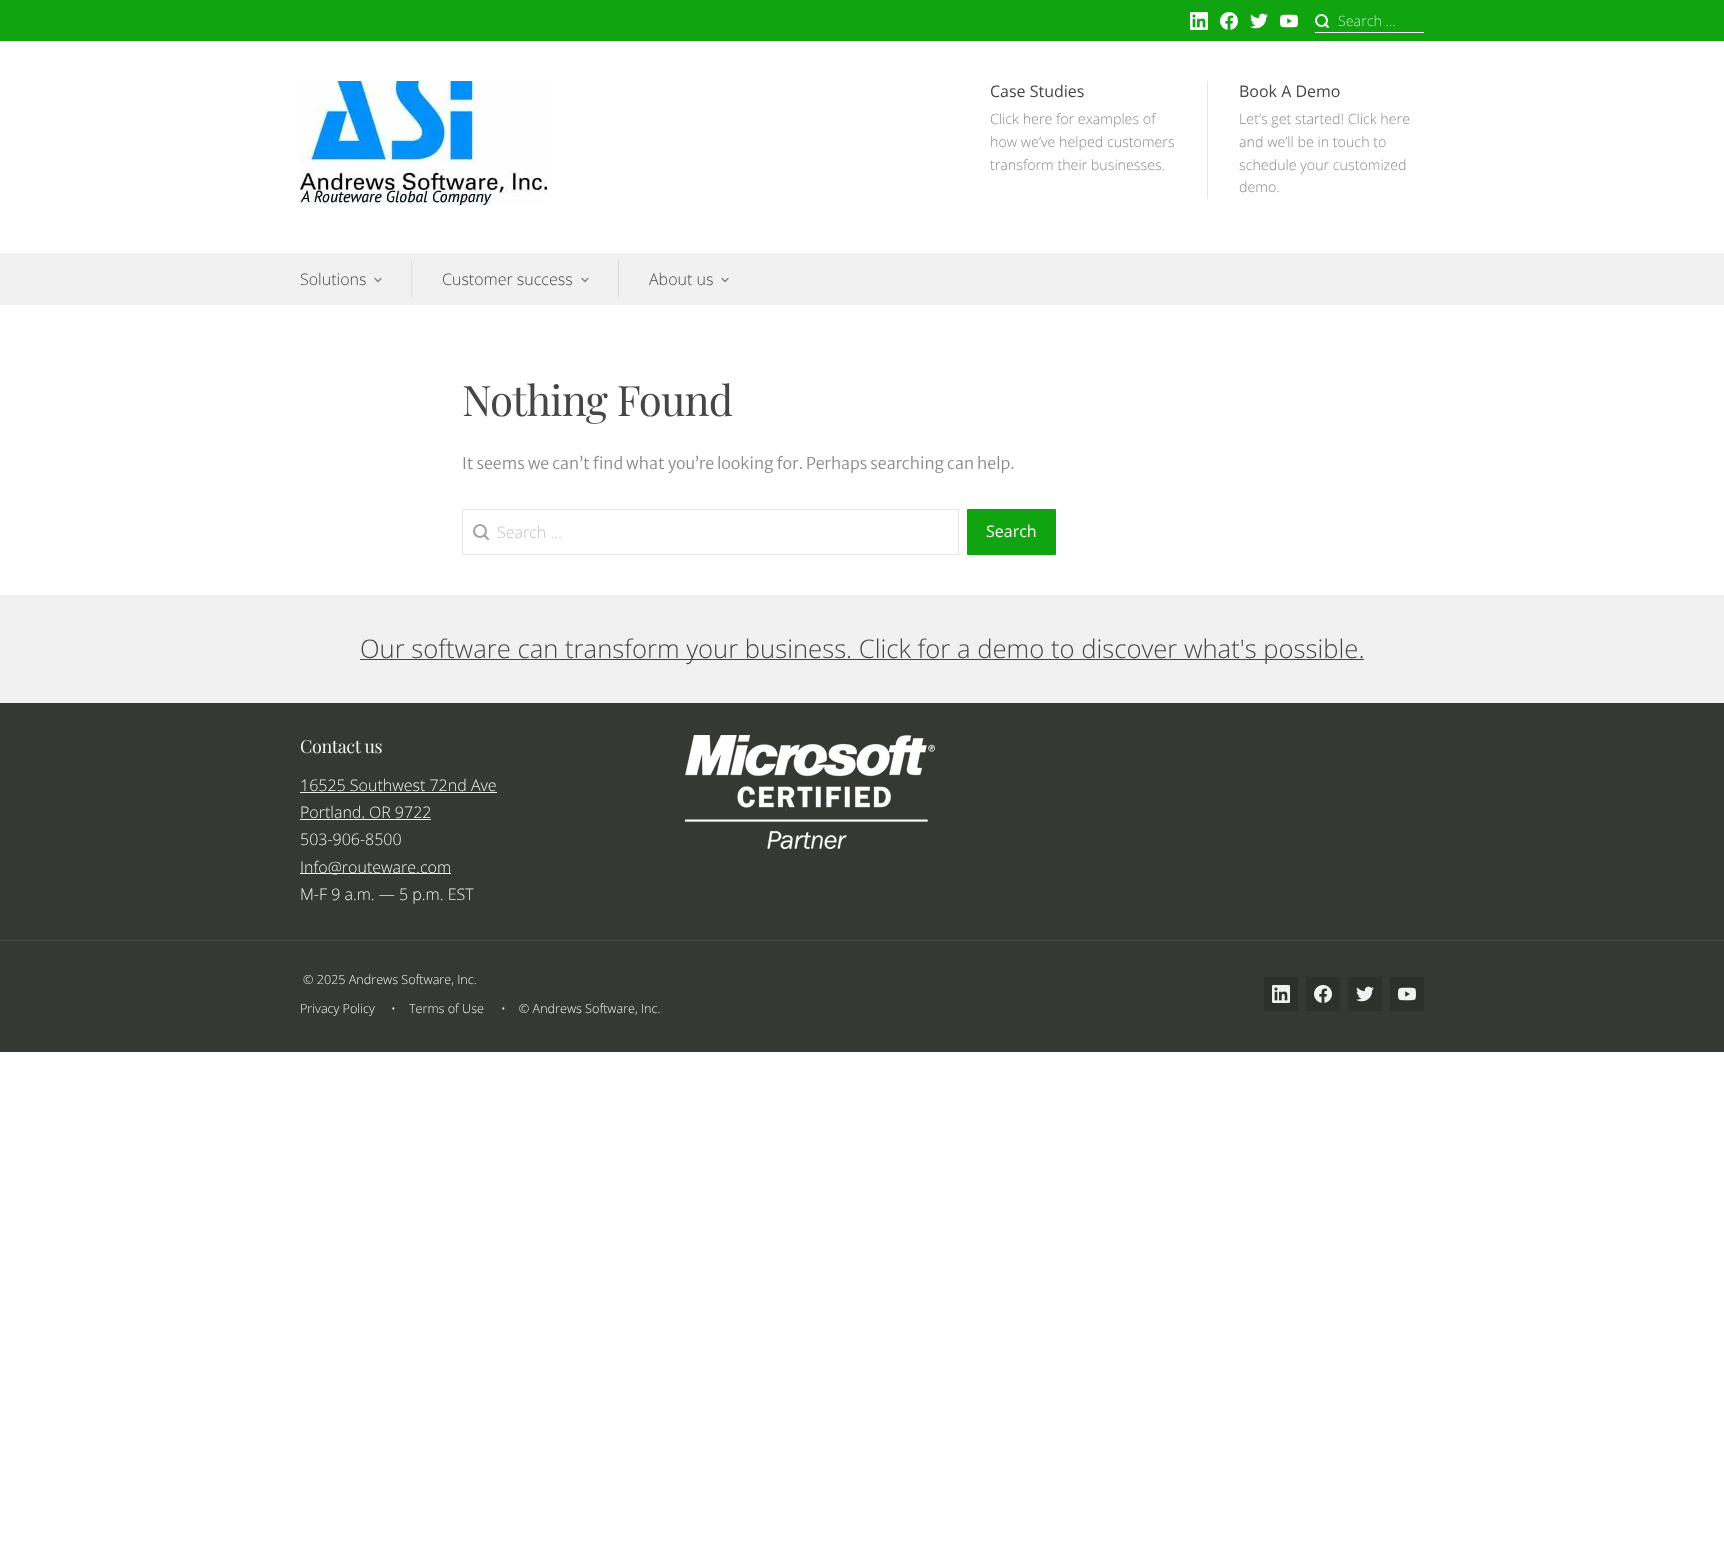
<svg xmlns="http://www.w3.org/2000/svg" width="1724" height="1561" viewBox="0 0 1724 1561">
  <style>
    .t1 { font: 300 14.25px Open Sans; fill: #b7e4b7; }
    .t2 { font: 16px Open Sans; fill: #464646; }
    .t3 { font: 300 14.25px Open Sans; fill: #888989; }
    .t4 { font: 300 16px Open Sans; fill: #464646; }
    .t5 { font: 42px Playfair Display; letter-spacing: -0.8px; fill: #464646; }
    .t6 { font: 300 16px Merriweather Sans; fill: #888989; }
    .t7 { font: 300 16px Open Sans; fill: #c1c1c1; }
    .t8 { font: 16px Open Sans; fill: #fff; }
    .t9 { font: 300 25.65px Open Sans; fill: #464646; }
    .t10 { font: 18px Playfair Display; letter-spacing: -0.4px; fill: #f1f1f1; }
    .t11 { font: 300 16px Open Sans; fill: #f1f1f1; }
    .t12 { font: 300 12.6px Open Sans; fill: #f1f1f1; }
  </style>
  <rect width="100%" height="100%" fill="#fff"/>
  <rect x="0" y="0" width="1724" height="41" fill="#10a510"/>
  <image x="1190" y="12" width="18" height="18" href="images/1.png"/>
  <image x="1220" y="12" width="18" height="18" href="images/2.png"/>
  <image x="1250" y="13" width="18" height="16" href="images/3.png"/>
  <image x="1280" y="14" width="18" height="14" href="images/4.png"/>
  <circle cx="1321.5" cy="20.5" r="5.5" fill="none" stroke="#fff" stroke-width="2"/>
  <path d="M1328 27L1325 24" fill="none" stroke="#fff" stroke-width="2" stroke-linecap="round" stroke-linejoin="round"/>
  <rect x="1315" y="32" width="109" height="1" fill="#fff"/>
  <text x="1338" y="26" class="t1">Search …</text>
  <image x="300" y="81" width="247" height="124" href="images/5.png"/>
  <text x="990" y="97" class="t2">Case Studies</text>
  <text x="990" y="124" class="t3">Click here for examples of</text>
  <text x="990" y="147" class="t3">how we’ve helped customers</text>
  <text x="990" y="170" class="t3">transform their businesses.</text>
  <rect x="1207" y="81" width="1" height="118" fill="#e6e6e6"/>
  <text x="1239" y="97" class="t2">Book A Demo</text>
  <text x="1239" y="124" class="t3">Let’s get started! Click here</text>
  <text x="1239" y="147" class="t3">and we’ll be in touch to</text>
  <text x="1239" y="170" class="t3">schedule your customized</text>
  <text x="1239" y="192" class="t3">demo.</text>
  <rect x="0" y="253" width="1724" height="52" fill="#f1f1f1"/>
  <rect x="411" y="261" width="1" height="36" fill="#d9d9d9"/>
  <text x="300" y="285" class="t4">Solutions</text>
  <path d="M375 278.5L378 281.5L381 278.5" fill="none" stroke="#888989" stroke-width="1.5" stroke-linecap="round" stroke-linejoin="round"/>
  <rect x="618" y="261" width="1" height="36" fill="#d9d9d9"/>
  <text x="442" y="285" class="t4">Customer success</text>
  <path d="M582 278.5L585 281.5L588 278.5" fill="none" stroke="#888989" stroke-width="1.5" stroke-linecap="round" stroke-linejoin="round"/>
  <text x="649" y="285" class="t4">About us</text>
  <path d="M722 278.5L725 281.5L728 278.5" fill="none" stroke="#888989" stroke-width="1.5" stroke-linecap="round" stroke-linejoin="round"/>
  <text x="462" y="416" class="t5">Nothing Found</text>
  <text x="462" y="469" class="t6">It seems we can’t find what you’re looking for. Perhaps searching can help.</text>
  <rect x="462.5" y="509.5" width="496" height="45" rx="0.5" fill="none" stroke="#e5e5e5"/>
  <circle cx="480" cy="531" r="6" fill="none" stroke="#a6a6a6" stroke-width="2.2"/>
  <path d="M488 539L484.5 535.5" fill="none" stroke="#a6a6a6" stroke-width="2.2" stroke-linecap="round" stroke-linejoin="round"/>
  <text x="497" y="538" class="t7">Search …</text>
  <rect x="967" y="509" width="89" height="46" rx="1" fill="#10a510"/>
  <text x="986" y="537" class="t8">Search</text>
  <rect x="0" y="595" width="1724" height="108" fill="#f1f1f1"/>
  <rect x="360" y="659" width="1004" height="1" fill="#464646"/>
  <text x="360" y="658" class="t9">Our software can transform your business. Click for a demo to discover what's possible.</text>
  <rect x="0" y="703" width="1724" height="349" fill="#353833"/>
  <rect x="0" y="940" width="1724" height="1" fill="#494c47"/>
  <text x="300" y="753" class="t10">Contact us</text>
  <text x="300" y="791" class="t11">16525 Southwest 72nd Ave</text>
  <rect x="300" y="792" width="197" height="1" fill="#f1f1f1"/>
  <rect x="300" y="819" width="131" height="1" fill="#f1f1f1"/>
  <text x="300" y="818" class="t11">Portland, OR 9722</text>
  <text x="300" y="845" class="t11">503-906-8500</text>
  <rect x="300" y="873" width="151" height="1" fill="#f1f1f1"/>
  <text x="300" y="873" class="t11">Info@routeware.com</text>
  <text x="300" y="900" class="t11">M-F 9 a.m. — 5 p.m. EST</text>
  <image x="685" y="735" width="250" height="114" href="images/6.png"/>
  <text x="303" y="984" class="t12">© 2025 Andrews Software, Inc.</text>
  <text x="300" y="1013" class="t12">Privacy Policy</text>
  <text x="391" y="1013" class="t12">•</text>
  <text x="409" y="1013" class="t12">Terms of Use</text>
  <text x="501" y="1013" class="t12" xml:space="preserve">•    © Andrews Software, Inc.</text>
  <rect x="1264" y="977" width="34" height="34" fill="#2d302b"/>
  <image x="1272" y="985" width="18" height="18" href="images/7.png"/>
  <rect x="1306" y="977" width="34" height="34" fill="#2d302b"/>
  <image x="1314" y="985" width="18" height="18" href="images/8.png"/>
  <rect x="1348" y="977" width="34" height="34" fill="#2d302b"/>
  <image x="1356" y="986" width="18" height="16" href="images/9.png"/>
  <rect x="1390" y="977" width="34" height="34" fill="#2d302b"/>
  <image x="1398" y="987" width="18" height="14" href="images/10.png"/>
</svg>
